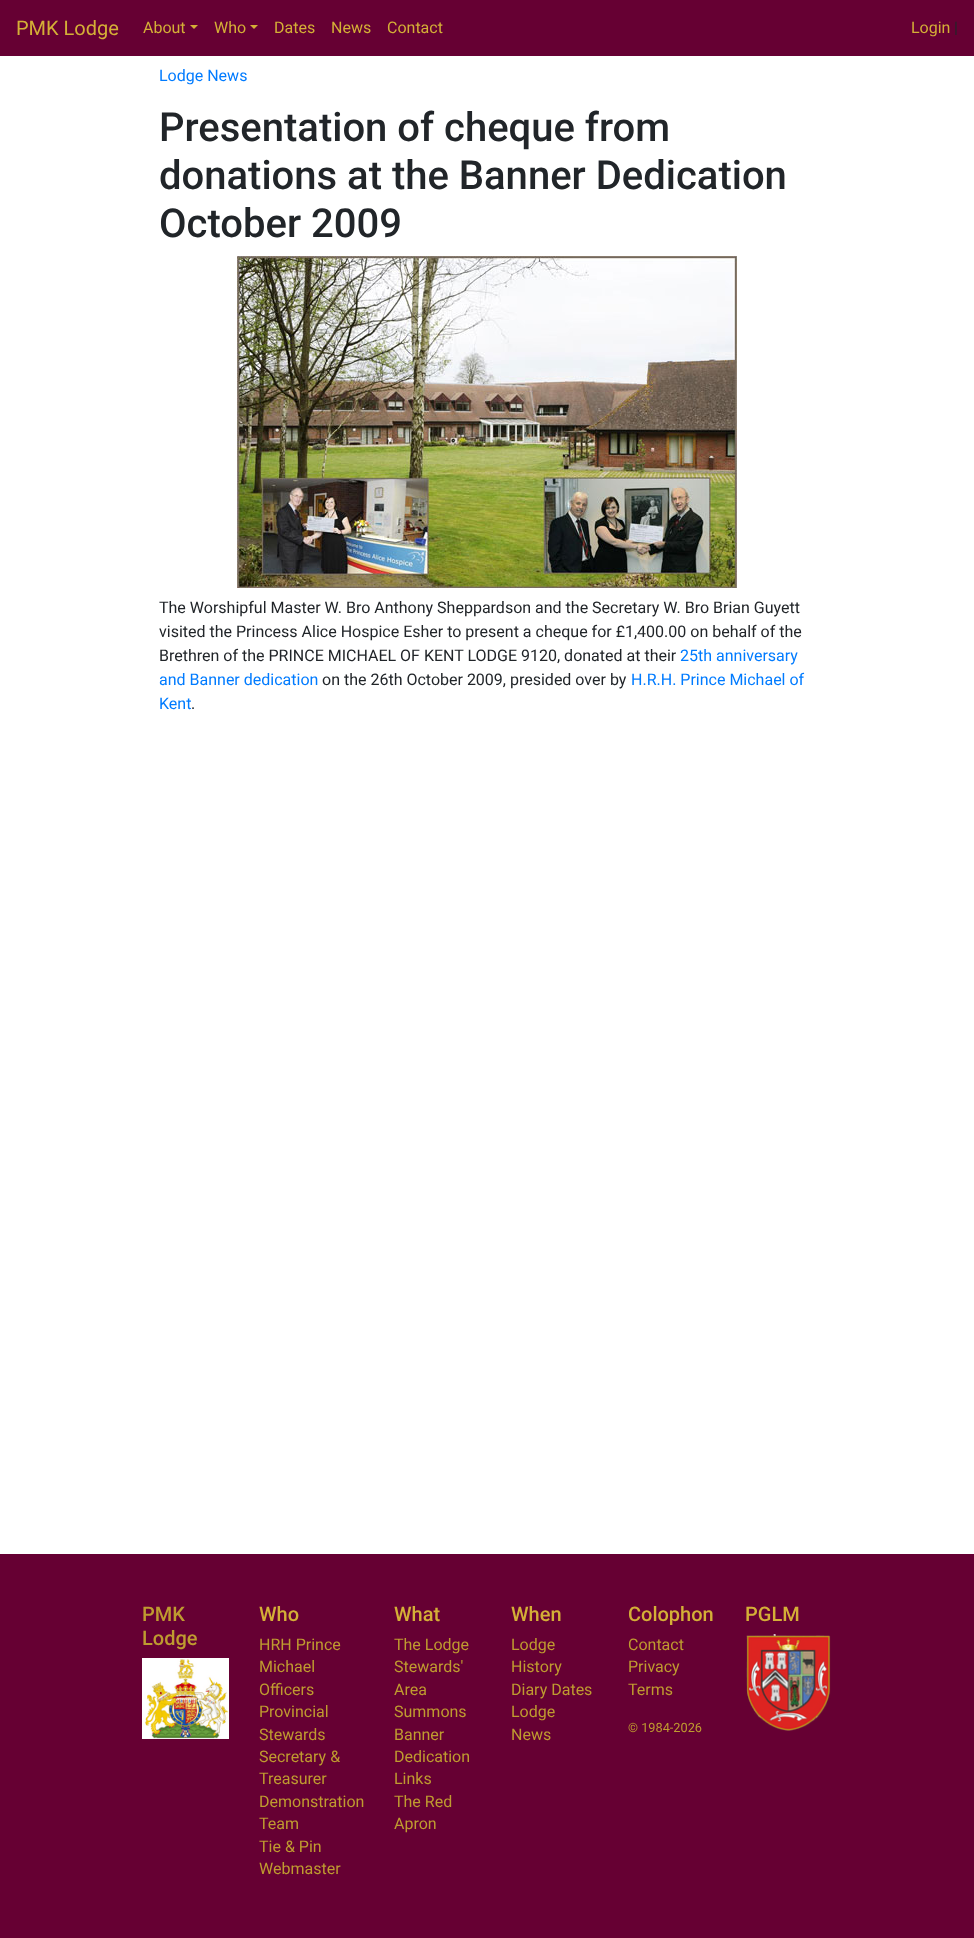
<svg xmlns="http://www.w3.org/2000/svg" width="974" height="1938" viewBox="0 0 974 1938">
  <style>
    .t1 { font: 20px Roboto; fill: #d4af37; }
    .t2 { font: 16px Roboto; fill: #d4af37; }
    .t3 { font: 16px Roboto; fill: #212529; }
    .t4 { font: 16px Roboto; fill: #007bff; }
    .t5 { font: 500 40px Roboto; fill: #212529; }
    .t6 { font: 500 20px Roboto; fill: #bf9b30; }
    .t7 { font: 500 20px Roboto; fill: #d4af37; }
    .t8 { font: 16px Roboto; fill: #bf9b30; }
    .t9 { font: 12.75px Roboto; fill: #bf9b30; }
  </style>
  <rect width="100%" height="100%" fill="#fff"/>
  <rect x="0" y="0" width="974" height="56" fill="#603"/>
  <text x="16" y="35" class="t1">PMK Lodge</text>
  <text x="143" y="33" class="t2">About</text>
  <path d="M190 25H198L194 29Z" fill="#d4af37"/>
  <text x="214" y="33" class="t2">Who</text>
  <path d="M250 25H258L254 29Z" fill="#d4af37"/>
  <text x="274" y="33" class="t2">Dates</text>
  <text x="331" y="33" class="t2">News</text>
  <text x="387" y="33" class="t2">Contact</text>
  <text x="911" y="33" class="t2">Login</text>
  <text x="954" y="33" class="t3">|</text>
  <text x="159" y="81" class="t4">Lodge News</text>
  <text x="159" y="141" class="t5">Presentation of cheque from</text>
  <text x="159" y="189" class="t5">donations at the Banner Dedication</text>
  <text x="159" y="237" class="t5">October 2009</text>
  <image x="237" y="256" width="500" height="332" href="images/1.png"/>
  <text x="159" y="613" class="t3">The Worshipful Master W. Bro Anthony Sheppardson and the Secretary W. Bro Brian Guyett</text>
  <text x="159" y="637" class="t3">visited the Princess Alice Hospice Esher to present a cheque for £1,400.00 on behalf of the</text>
  <text x="159" y="661" class="t3">Brethren of the PRINCE MICHAEL OF KENT LODGE 9120, donated at their</text>
  <text x="680" y="661" class="t4">25th anniversary</text>
  <text x="159" y="685" class="t4">and Banner dedication</text>
  <text x="322" y="685" class="t3">on the 26th October 2009, presided over by</text>
  <text x="631" y="685" class="t4">H.R.H. Prince Michael of</text>
  <text x="159" y="709" class="t4">Kent</text>
  <text x="191" y="709" class="t3">.</text>
  <rect x="0" y="1554" width="974" height="384" fill="#603"/>
  <text x="142" y="1621" class="t6">PMK</text>
  <text x="142" y="1645" class="t6">Lodge</text>
  <image x="142" y="1658" width="87" height="81" href="images/2.png"/>
  <text x="259" y="1621" class="t7">Who</text>
  <text x="259" y="1650" class="t8">HRH Prince</text>
  <text x="259" y="1672" class="t8">Michael</text>
  <text x="259" y="1695" class="t8">Officers</text>
  <text x="259" y="1717" class="t8">Provincial</text>
  <text x="259" y="1740" class="t8">Stewards</text>
  <text x="259" y="1762" class="t8">Secretary &amp;</text>
  <text x="259" y="1784" class="t8">Treasurer</text>
  <text x="259" y="1807" class="t8">Demonstration</text>
  <text x="259" y="1829" class="t8">Team</text>
  <text x="259" y="1852" class="t8">Tie &amp; Pin</text>
  <text x="259" y="1874" class="t8">Webmaster</text>
  <text x="394" y="1621" class="t7">What</text>
  <text x="394" y="1650" class="t8">The Lodge</text>
  <text x="394" y="1672" class="t8">Stewards'</text>
  <text x="394" y="1695" class="t8">Area</text>
  <text x="394" y="1717" class="t8">Summons</text>
  <text x="394" y="1740" class="t8">Banner</text>
  <text x="394" y="1762" class="t8">Dedication</text>
  <text x="394" y="1784" class="t8">Links</text>
  <text x="394" y="1807" class="t8">The Red</text>
  <text x="394" y="1829" class="t8">Apron</text>
  <text x="511" y="1621" class="t7">When</text>
  <text x="511" y="1650" class="t8">Lodge</text>
  <text x="511" y="1672" class="t8">History</text>
  <text x="511" y="1695" class="t8">Diary Dates</text>
  <text x="511" y="1717" class="t8">Lodge</text>
  <text x="511" y="1740" class="t8">News</text>
  <text x="628" y="1621" class="t7">Colophon</text>
  <text x="628" y="1650" class="t8">Contact</text>
  <text x="628" y="1672" class="t8">Privacy</text>
  <text x="628" y="1695" class="t8">Terms</text>
  <text x="628" y="1732" class="t9">© 1984-2026</text>
  <text x="745" y="1621" class="t7">PGLM</text>
  <image x="746" y="1634" width="85" height="97" href="images/3.png"/>
</svg>
